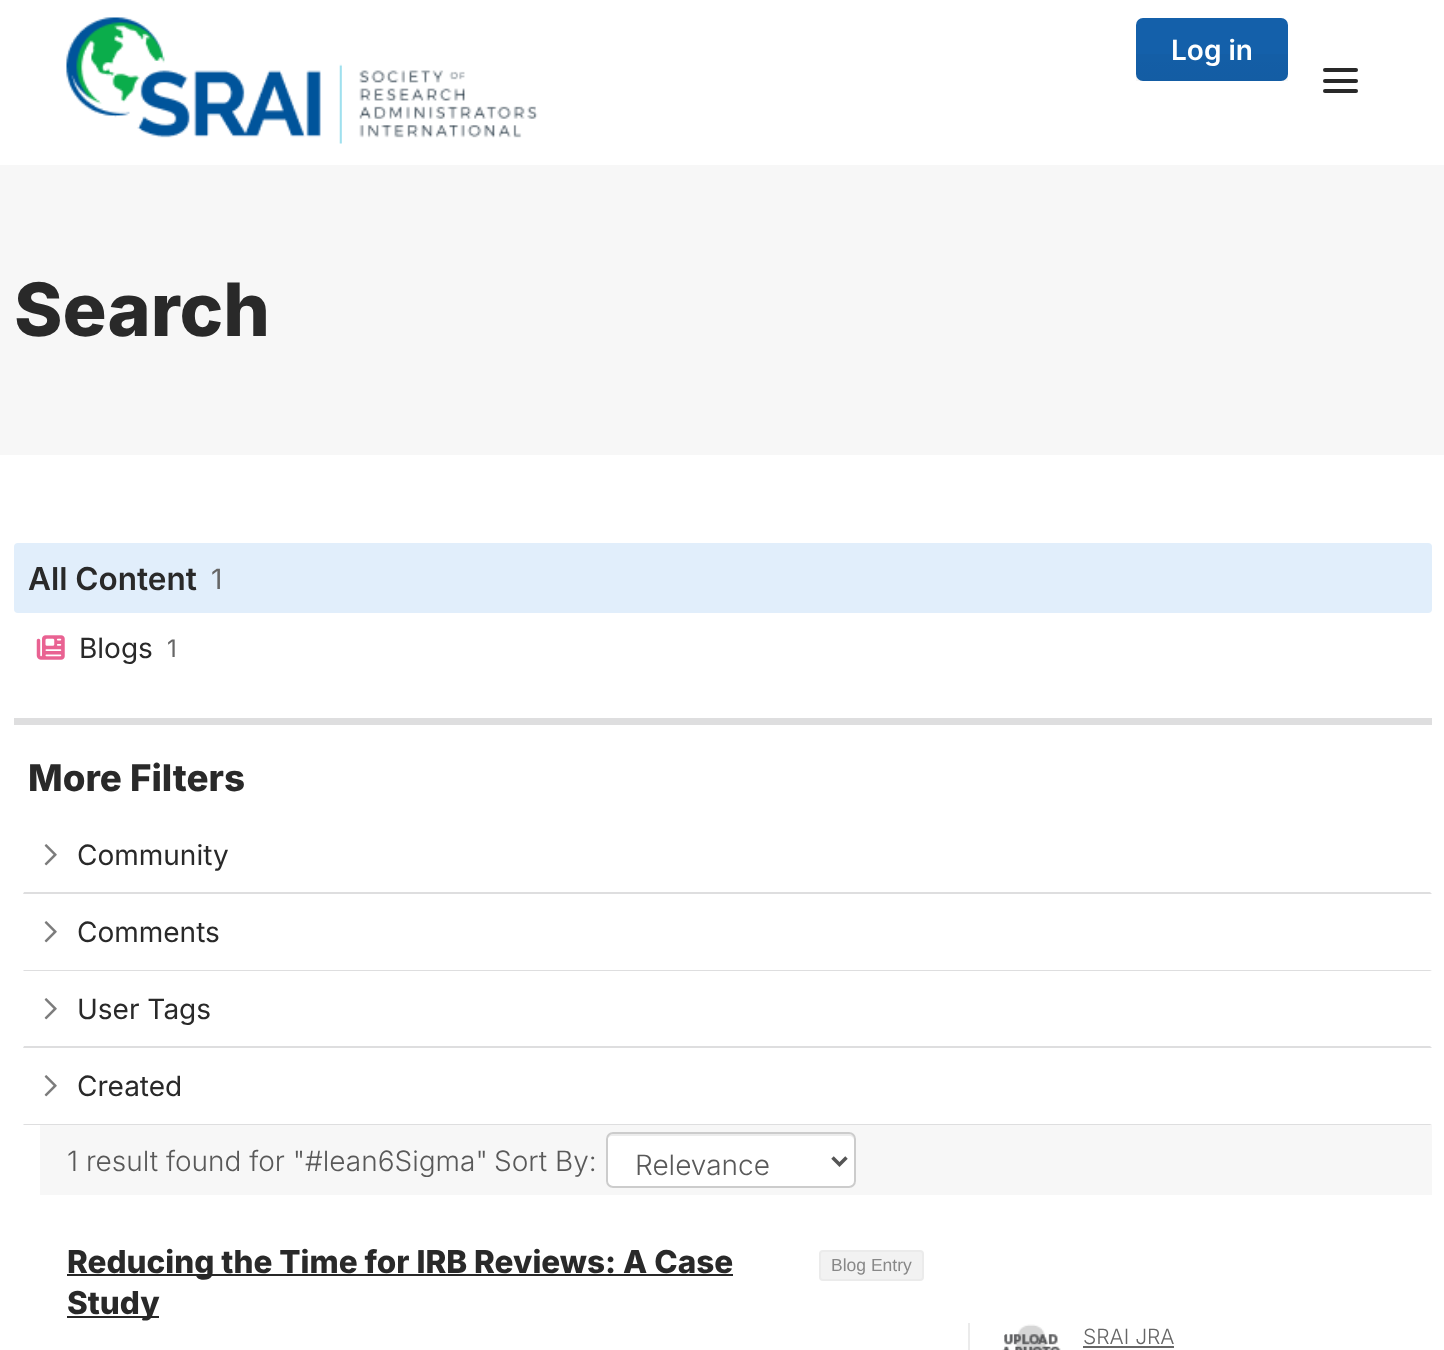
<svg xmlns="http://www.w3.org/2000/svg" width="1444" height="1350" viewBox="0 0 1444 1350">
  <style>
    .t1 { font: 600 28px Inter; fill: #fff; }
    .t2 { font: 800 73.5px Inter; fill: #292929; }
    .t3 { font: 600 31.5px Inter; fill: #292929; }
    .t4 { font: 28px Inter; fill: #666; }
    .t5 { font: 28px Inter; fill: #292929; }
    .t6 { font: 24px Inter; fill: #666; }
    .t7 { font: 800 36.75px Inter; fill: #292929; }
    .t8 { font: 300 28px Inter; fill: #595959; }
    .t9 { font: 800 31.5px Inter; fill: #292929; }
    .t10 { font: 17.5px Liberation Sans; fill: #888; }
    .t11 { font: 300 21px Inter; fill: #666; }
  </style>
  <defs>
    <linearGradient id="g1" gradientUnits="userSpaceOnUse" x1="1212" y1="18" x2="1212" y2="522"><stop offset="0" stop-color="#000" stop-opacity="0"/><stop offset="1" stop-color="#000" stop-opacity="0.3"/></linearGradient>
  </defs>
  <rect width="100%" height="100%" fill="#fff"/>
  <image x="66" y="17" width="472" height="127" href="images/1.png"/>
  <rect x="1136" y="18" width="152" height="63" rx="7" fill="#1460aa"/>
  <rect x="1136" y="54" width="152" height="27" fill="url(#g1)"/>
  <text x="1171" y="60" class="t1">Log in</text>
  <rect x="1323" y="68" width="35" height="4" rx="2" fill="#292929"/>
  <rect x="1323" y="79" width="35" height="4" rx="2" fill="#292929"/>
  <rect x="1323" y="89" width="35" height="4" rx="2" fill="#292929"/>
  <rect x="0" y="165" width="1444" height="290" fill="#f7f7f7"/>
  <text x="14" y="336" class="t2">Search</text>
  <rect x="14" y="543" width="1418" height="70" rx="4" fill="#e1eefb"/>
  <text x="28" y="590" class="t3">All Content</text>
  <text x="211" y="589" class="t4">1</text>
  <image x="36" y="635" width="29" height="25" href="images/2.png"/>
  <text x="79" y="658" class="t5">Blogs</text>
  <text x="167" y="657" class="t6">1</text>
  <rect x="14" y="718" width="1418" height="7" fill="#dededf"/>
  <text x="28" y="791" class="t7">More Filters</text>
  <path d="M1432 894H23L24 892H1430Z" fill="#dededf"/>
  <image x="44" y="844" width="13" height="22" href="images/3.png"/>
  <text x="77" y="865" class="t5">Community</text>
  <path d="M1432 971H23L24 970H1430Z" fill="#dededf"/>
  <image x="44" y="921" width="13" height="22" href="images/3.png"/>
  <text x="77" y="942" class="t5">Comments</text>
  <path d="M1432 1048H23L24 1046H1430Z" fill="#dededf"/>
  <image x="44" y="998" width="13" height="22" href="images/3.png"/>
  <text x="77" y="1019" class="t5">User Tags</text>
  <path d="M1432 1125H23L24 1124H1430Z" fill="#dededf"/>
  <image x="44" y="1075" width="13" height="22" href="images/3.png"/>
  <text x="77" y="1096" class="t5">Created</text>
  <rect x="40" y="1125" width="1392" height="70" fill="#f7f7f7"/>
  <text x="67" y="1171" class="t8">1 result found for "#lean6Sigma"</text>
  <text x="494" y="1171" class="t8">Sort By:</text>
  <rect x="606" y="1132" width="250" height="56" rx="7" fill="#fff"/>
  <path d="M612 1136H849C852 1136 854 1138 854 1141C854 1138 854 1135 850 1134H611C607 1135 607 1138 607 1141C607 1138 610 1136 612 1136Z" fill="#ececec"/>
  <rect x="607" y="1133" width="248" height="54" rx="6" fill="none" stroke="#ccc" stroke-width="2"/>
  <path d="M832.5 1157.5L839.5 1164.5L846.5 1157.5" fill="none" stroke="#555" stroke-width="3.5"/>
  <text x="635" y="1175" class="t8">Relevance</text>
  <rect x="67" y="1274" width="666" height="2" fill="#272727"/>
  <text x="67" y="1273" class="t9">Reducing the Time for IRB Reviews: A Case</text>
  <rect x="820" y="1251" width="103" height="29" rx="3" fill="#f2f2f2" stroke="#ebebeb" stroke-width="2"/>
  <text x="831" y="1271" class="t10">Blog Entry</text>
  <rect x="67" y="1316" width="92" height="2" fill="#272727"/>
  <text x="67" y="1314" class="t9">Study</text>
  <rect x="968" y="1323" width="2" height="27" fill="#ebebeb"/>
  <image x="1002" y="1324" width="59" height="26" href="images/4.png"/>
  <text x="1083" y="1344" class="t11">SRAI JRA</text>
  <rect x="1083" y="1346" width="91" height="2" fill="#666"/>
</svg>
